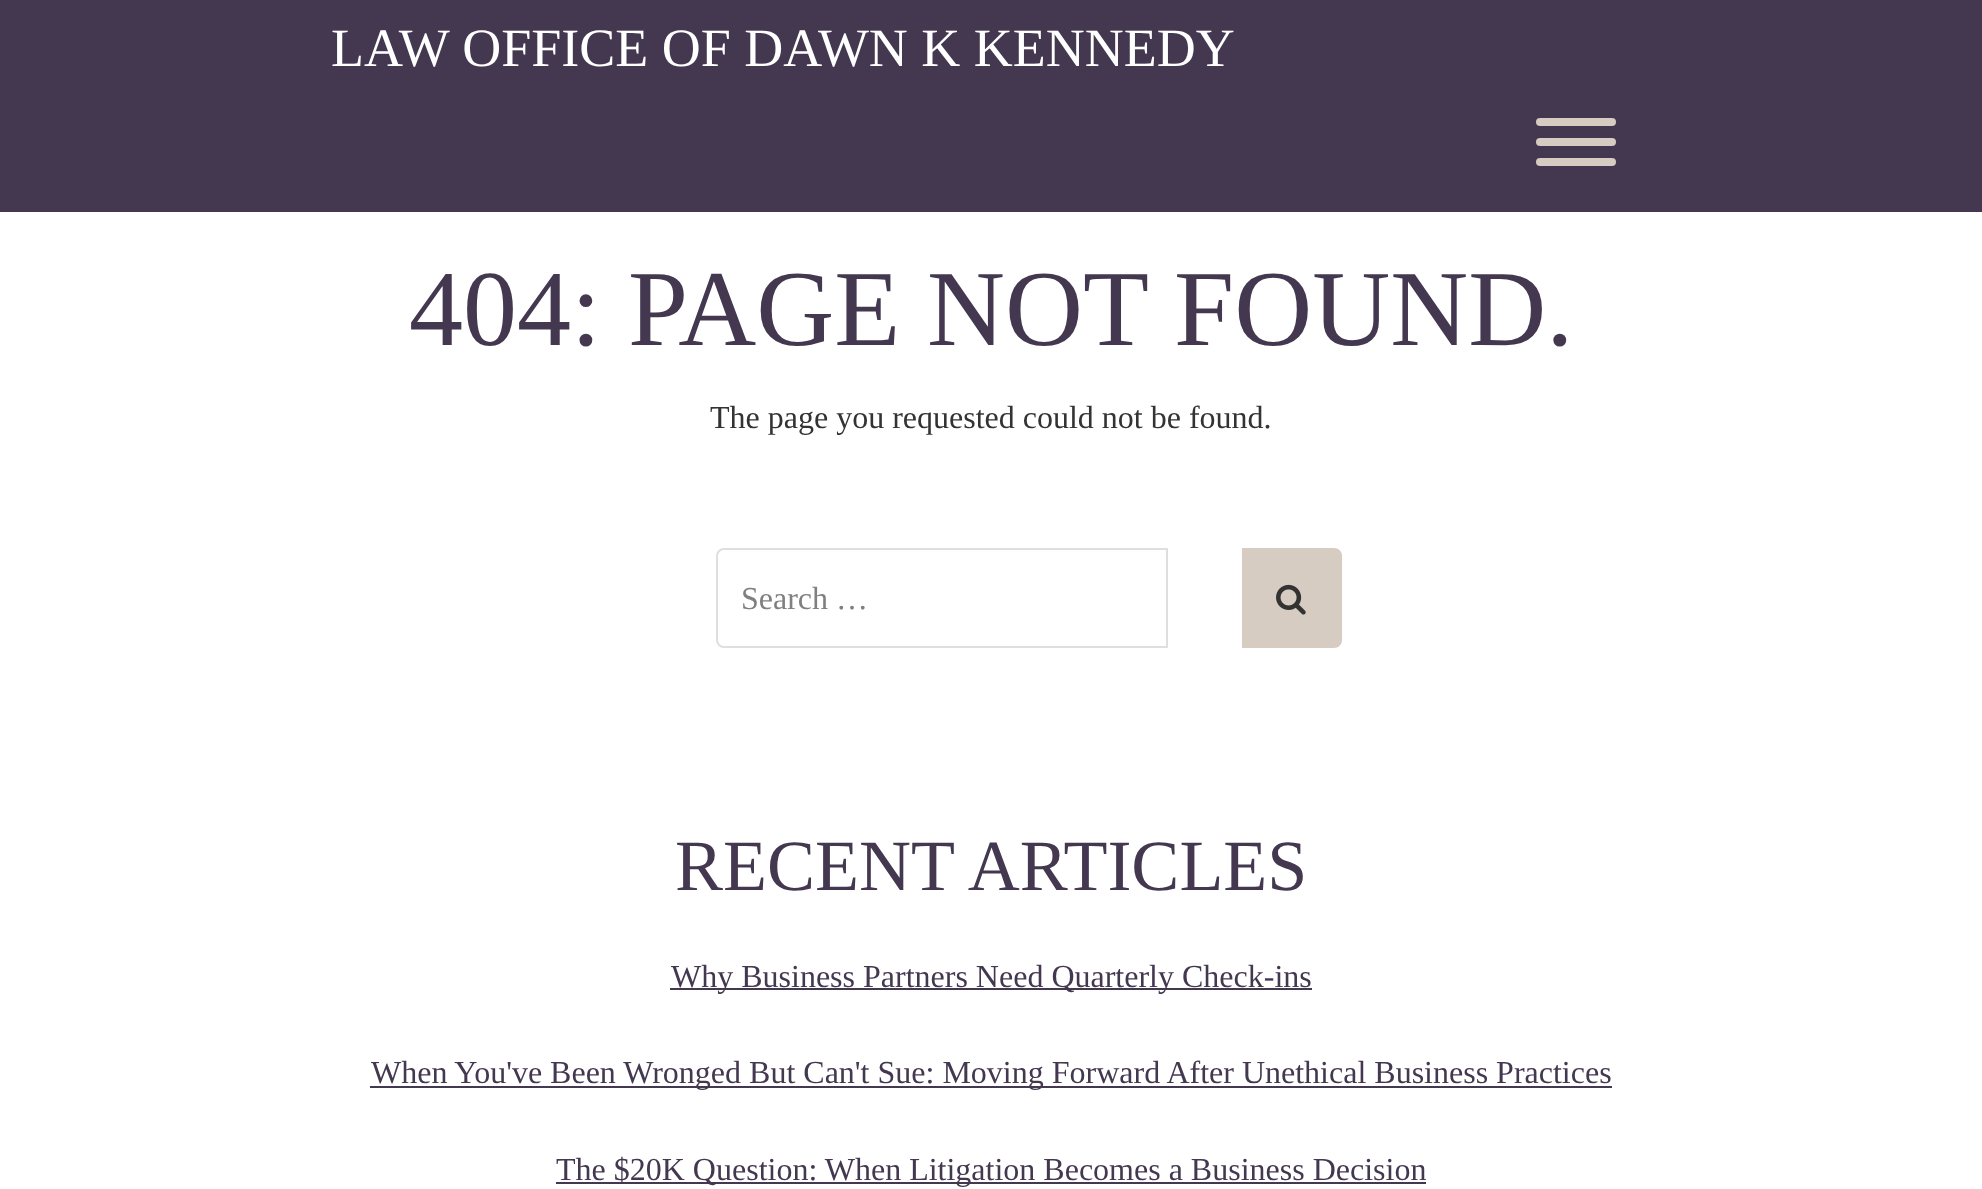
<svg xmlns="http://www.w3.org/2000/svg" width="1982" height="1189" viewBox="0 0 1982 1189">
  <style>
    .t1 { font: 54px Liberation Serif; fill: #fff; }
    .t2 { font: 108px Liberation Serif; fill: #443850; }
    .t3 { font: 32px Liberation Serif; fill: #333; }
    .t4 { font: 32px Liberation Serif; fill: #808080; }
    .t5 { font: 72px Liberation Serif; fill: #443850; }
    .t6 { font: 32px Liberation Serif; fill: #443850; }
  </style>
  <rect width="100%" height="100%" fill="#fff"/>
  <rect x="0" y="0" width="1982" height="212" fill="#443850"/>
  <text x="331" y="66" class="t1">LAW OFFICE OF DAWN K KENNEDY</text>
  <rect x="1536" y="158" width="80" height="8" rx="4" fill="#d6ccc2"/>
  <rect x="1536" y="118" width="80" height="8" rx="4" fill="#d6ccc2"/>
  <rect x="1536" y="138" width="80" height="8" rx="4" fill="#d6ccc2"/>
  <text x="409" y="345" class="t2">404: PAGE NOT FOUND.</text>
  <text x="710" y="428" class="t3">The page you requested could not be found.</text>
  <path d="M724 549H1167V647H724C720 647 717 644 717 640V556C717 552 720 549 724 549Z" fill="none" stroke="#dfdfdf" stroke-width="2"/>
  <text x="741" y="609" class="t4">Search …</text>
  <path d="M1242 548H1334C1338.5 548 1342 551.5 1342 556V640C1342 644.5 1338.5 648 1334 648H1242Z" fill="#d6ccc2"/>
  <image x="1276" y="584" width="30" height="31" href="images/1.png"/>
  <text x="675" y="890" class="t5">RECENT ARTICLES</text>
  <rect x="670" y="988" width="642" height="2" fill="#443850"/>
  <text x="671" y="987" class="t6">Why Business Partners Need Quarterly Check-ins</text>
  <rect x="370" y="1086" width="1242" height="2" fill="#443850"/>
  <text x="371" y="1083" class="t6">When You've Been Wronged But Can't Sue: Moving Forward After Unethical Business Practices</text>
  <rect x="556" y="1182" width="870" height="2" fill="#443850"/>
  <text x="556" y="1180" class="t6">The $20K Question: When Litigation Becomes a Business Decision</text>
</svg>
